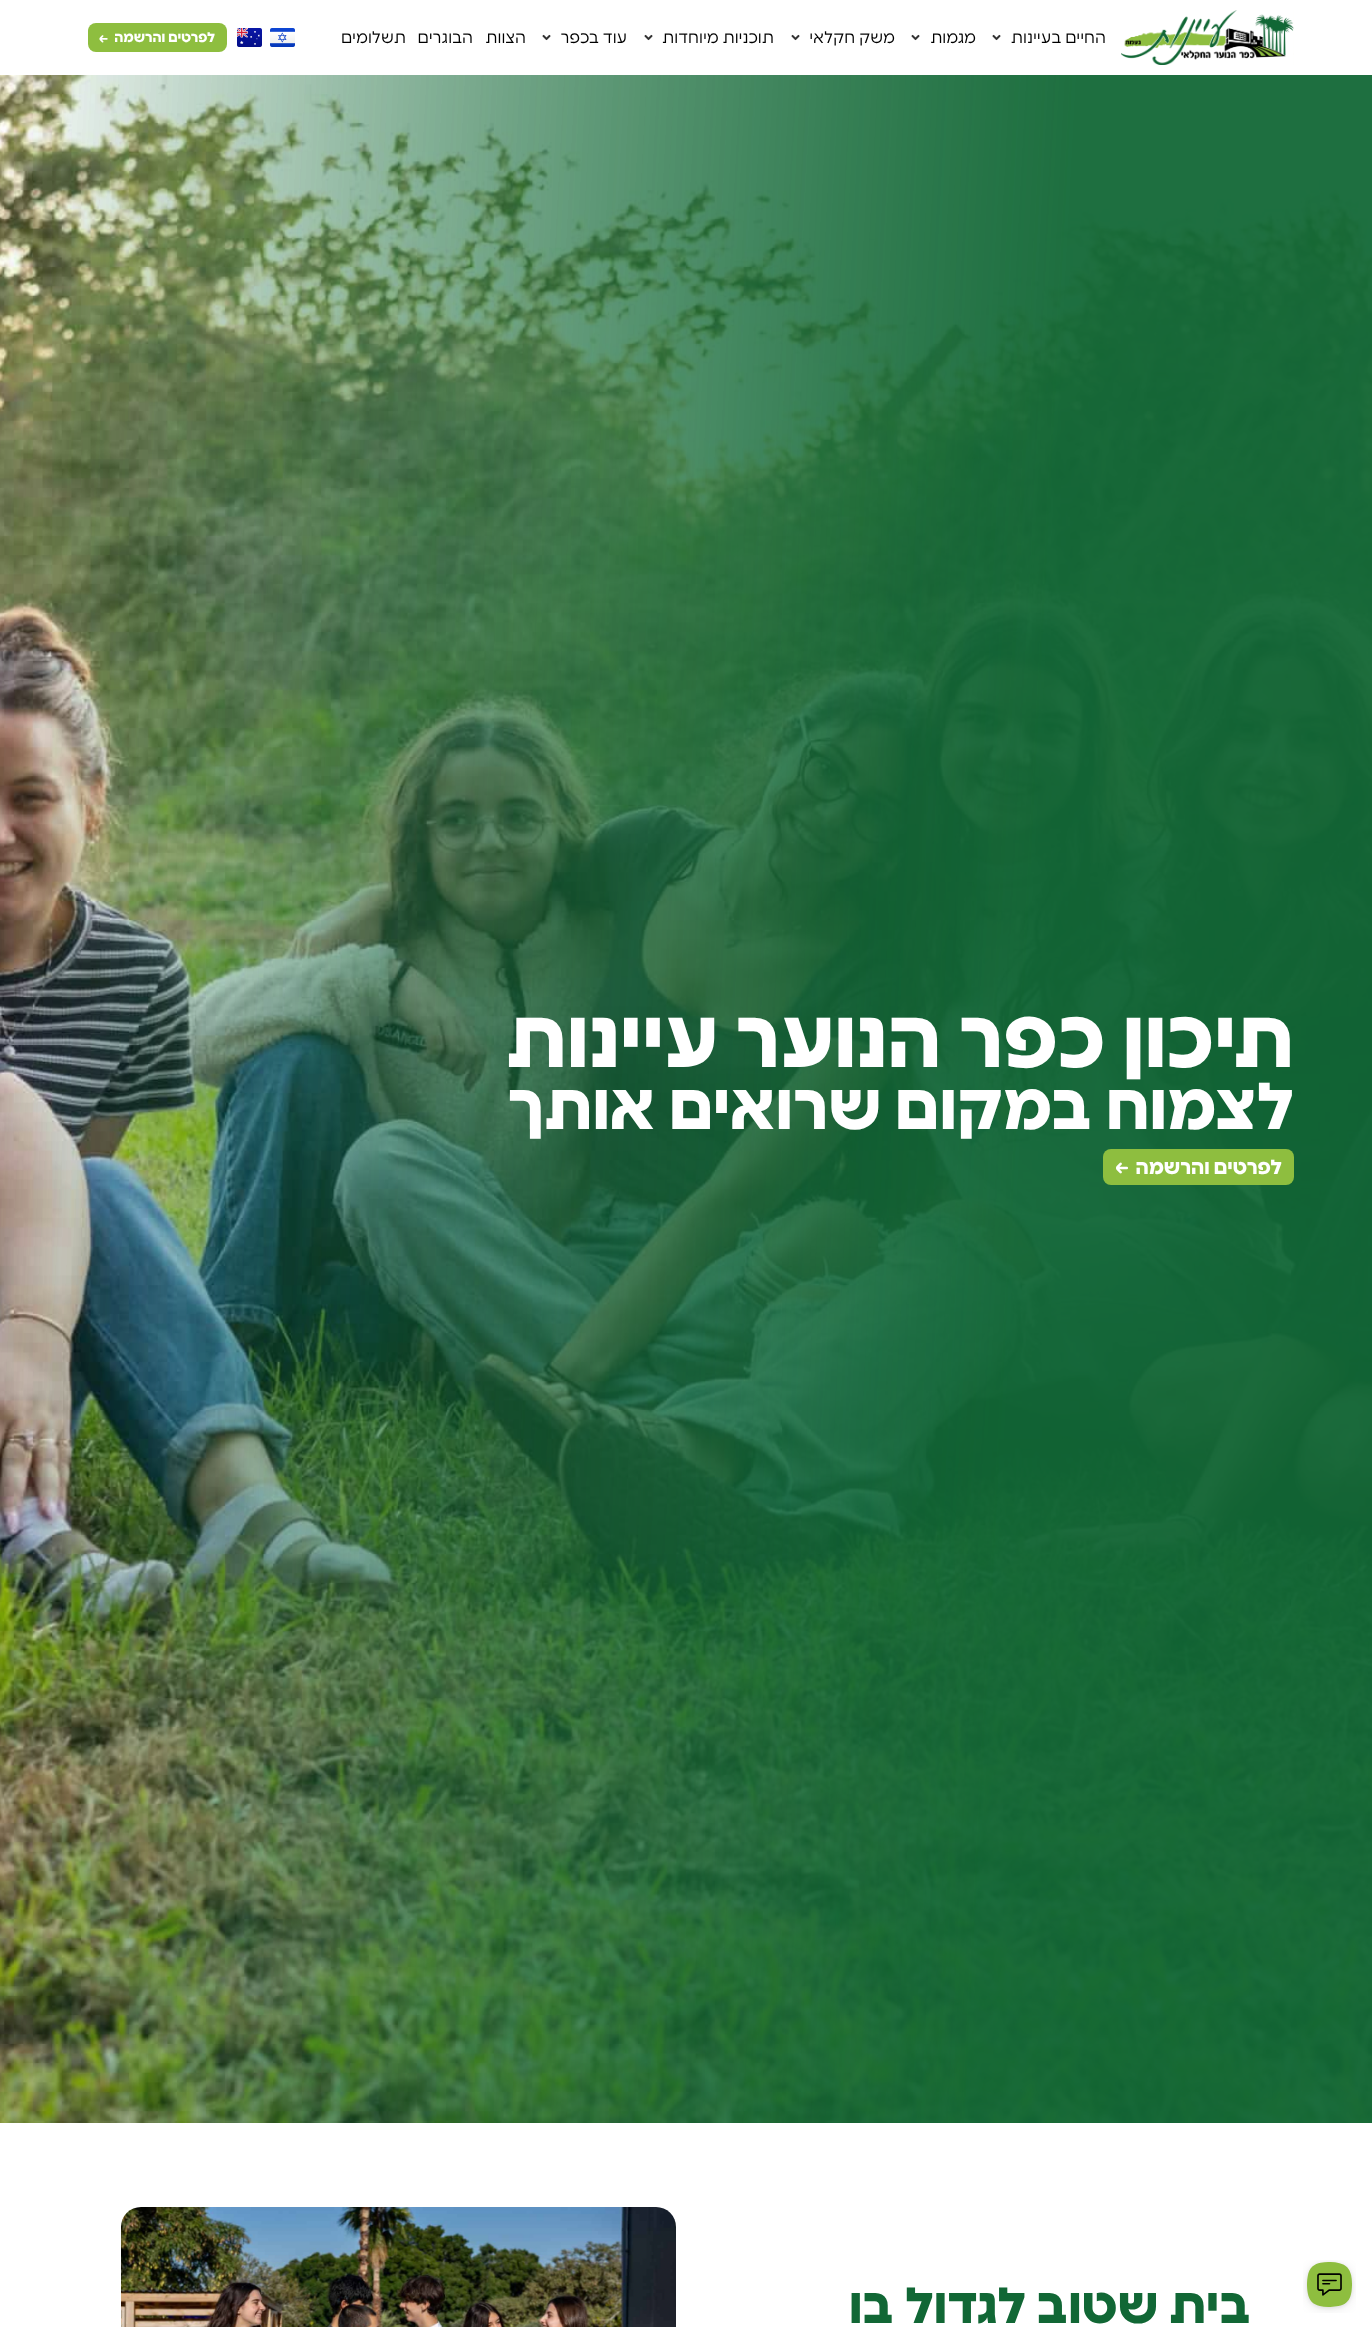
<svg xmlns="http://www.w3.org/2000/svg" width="1372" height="2327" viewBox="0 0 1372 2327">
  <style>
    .t1 { font: 16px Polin; direction: rtl; fill: #000; }
    .t2 { font: bold 13.75px Polin; direction: rtl; fill: #fff; }
    .t3 { font: bold 82px Polin; direction: rtl; fill: #fff; }
    .t4 { font: bold 65px Polin; direction: rtl; fill: #fff; }
    .t5 { font: bold 20px Polin; direction: rtl; fill: #fff; }
    .t6 { font: bold 50px Polin; direction: rtl; fill: #116735; }
  </style>
  <rect width="100%" height="100%" fill="#fff"/>
  <image x="1121" y="10" width="173" height="55" href="images/1.png"/>
  <text x="1106" y="43" class="t1">החיים בעיינות</text>
  <image x="992" y="34" width="9" height="7" href="images/2.png"/>
  <text x="976" y="43" class="t1">מגמות</text>
  <image x="911" y="34" width="9" height="7" href="images/2.png"/>
  <text x="895" y="43" class="t1">משק חקלאי</text>
  <image x="791" y="34" width="9" height="7" href="images/2.png"/>
  <text x="774" y="43" class="t1">תוכניות מיוחדות</text>
  <image x="644" y="34" width="9" height="7" href="images/2.png"/>
  <text x="627" y="43" class="t1">עוד בכפר</text>
  <image x="542" y="34" width="9" height="7" href="images/2.png"/>
  <text x="526" y="43" class="t1">הצוות</text>
  <text x="473" y="43" class="t1">הבוגרים</text>
  <text x="406" y="43" class="t1">תשלומים</text>
  <image x="270" y="28" width="25" height="19" href="images/3.png"/>
  <image x="237" y="28" width="25" height="19" href="images/4.png"/>
  <rect x="88" y="23" width="139" height="29" rx="8" fill="#8ebe3f"/>
  <text x="215" y="42" class="t2">לפרטים והרשמה</text>
  <image x="99" y="35" width="9" height="8" href="images/5.png"/>
  <image x="1303" y="2260" width="53" height="53" href="images/6.png"/>
  <image x="0" y="75" width="1372" height="2048" href="images/7.png"/>
  <text x="1294" y="1067" class="t3">תיכון כפר הנוער עיינות</text>
  <text x="1294" y="1129" class="t4">לצמוח במקום שרואים אותך</text>
  <rect x="1103" y="1149" width="191" height="36" rx="8" fill="#8ebe3f"/>
  <text x="1282" y="1174" class="t5">לפרטים והרשמה</text>
  <image x="1116" y="1162" width="12" height="12" href="images/8.png"/>
  <text x="1251" y="2323" class="t6">בית שטוב לגדול בו</text>
  <image x="121" y="2207" width="555" height="120" href="images/9.png"/>
</svg>
